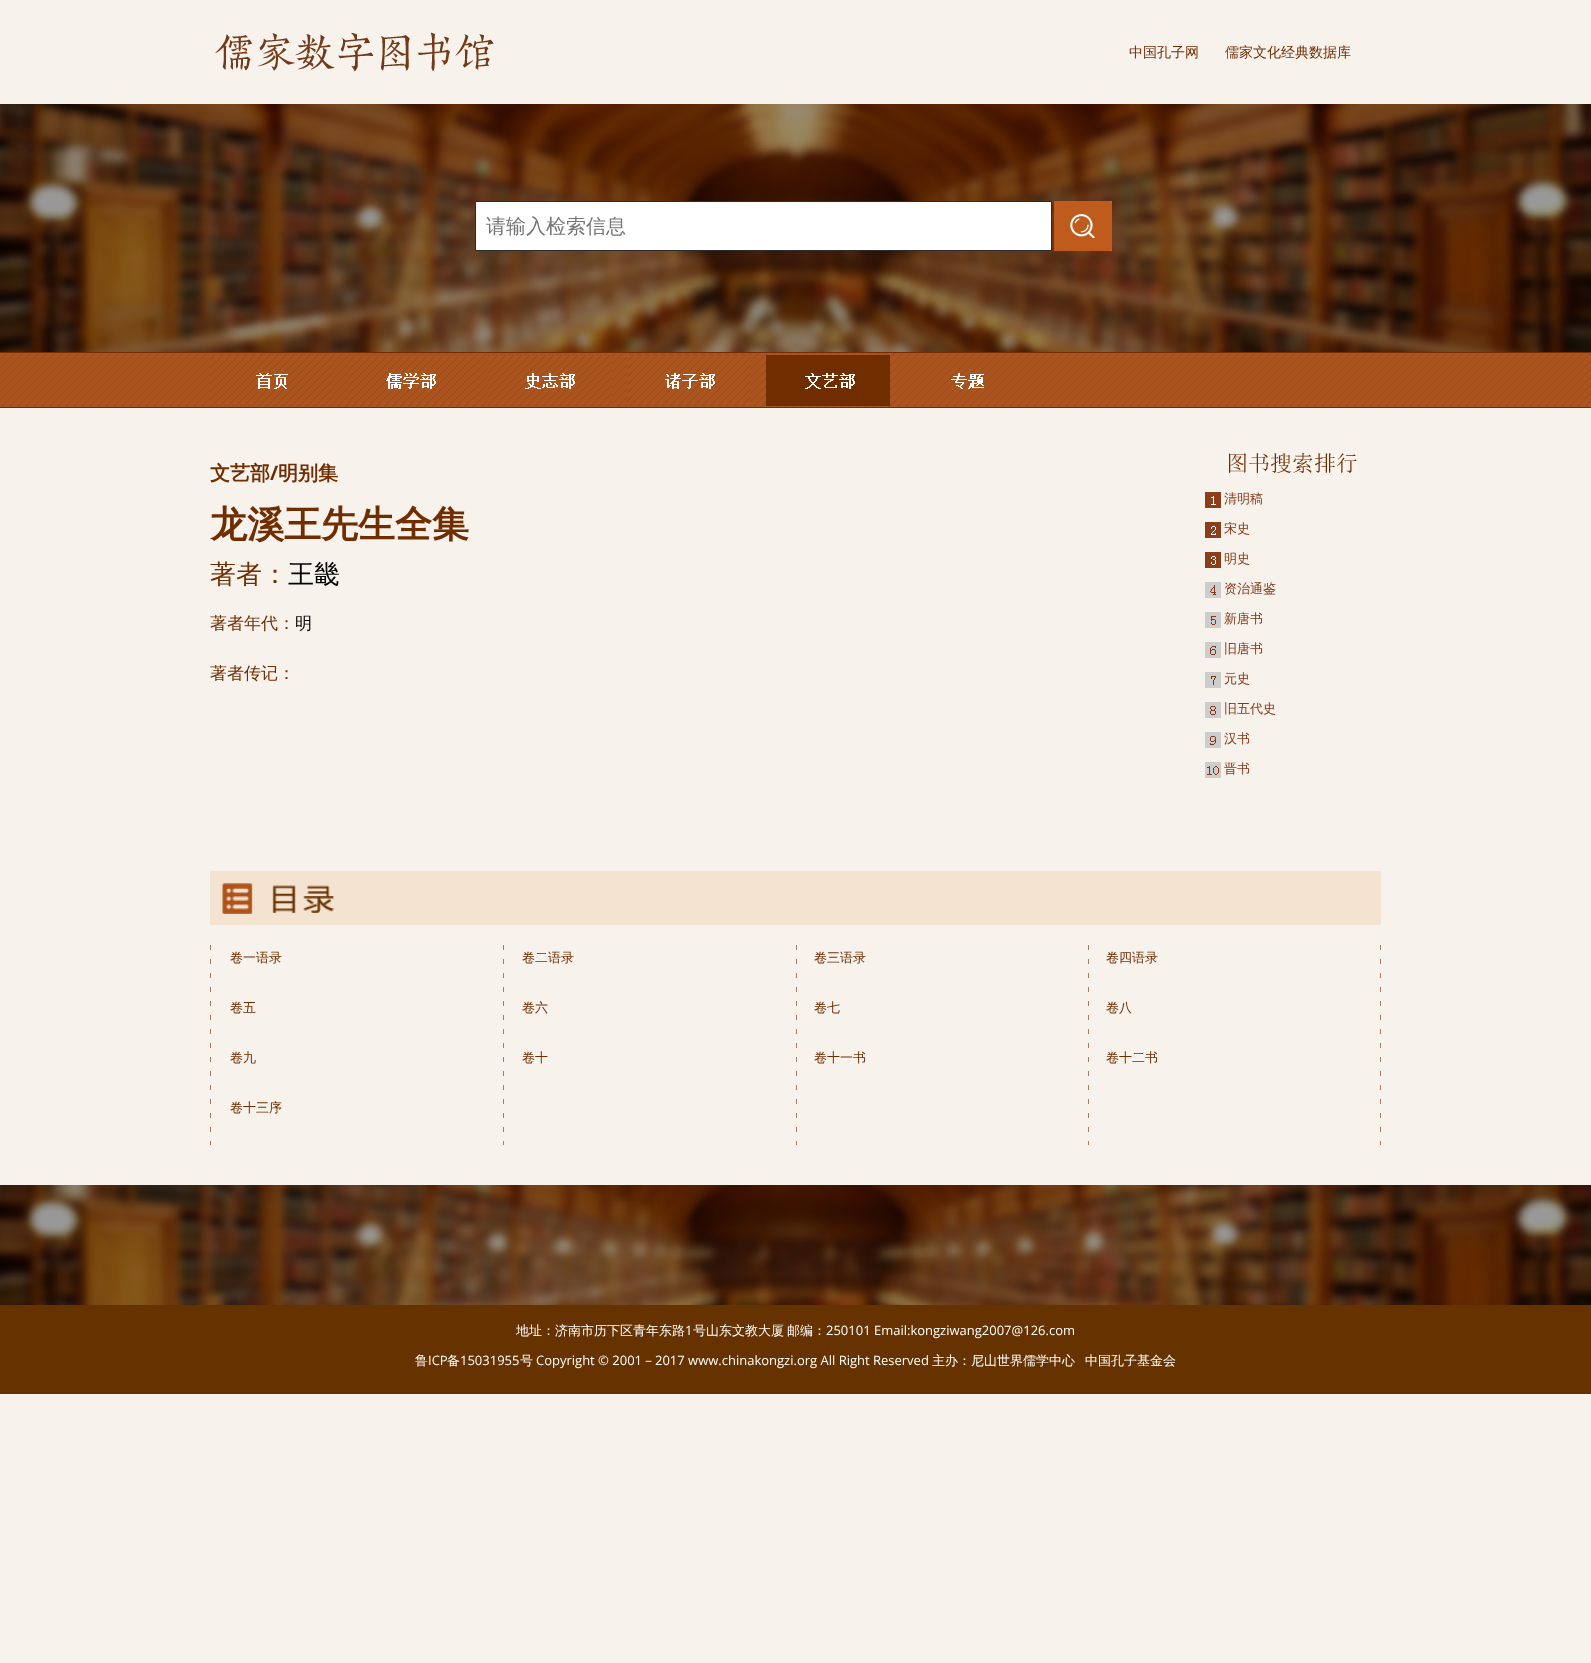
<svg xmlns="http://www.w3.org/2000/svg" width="1591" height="1663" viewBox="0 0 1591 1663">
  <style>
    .t1 { font: 500 14px WenQuanYi Zen Hei; fill: #702d00; }
    .t2 { font: 500 20px WenQuanYi Zen Hei; fill: #757575; }
    .t3 { font: bold 20px WenQuanYi Zen Hei; fill: #702d00; }
    .t4 { font: bold 20px Open Sans; fill: #702d00; }
    .t5 { font: bold 37px WenQuanYi Zen Hei; fill: #702d00; }
    .t6 { font: 500 26px WenQuanYi Zen Hei; fill: #702d00; }
    .t7 { font: 500 26px WenQuanYi Zen Hei; fill: #000; }
    .t8 { font: 500 17px WenQuanYi Zen Hei; fill: #702d00; }
    .t9 { font: 500 17px WenQuanYi Zen Hei; fill: #000; }
    .t10 { font: 500 13px WenQuanYi Zen Hei; fill: #873716; }
    .t11 { font: 500 13px WenQuanYi Zen Hei; fill: #702d00; }
    .t12 { font: 500 13px WenQuanYi Zen Hei; fill: #fff; }
    .t13 { font: 13px Open Sans; fill: #fff; }
  </style>
  <rect width="100%" height="100%" fill="#f7f2ec"/>
  <image x="215" y="32" width="279" height="40" href="images/1.png"/>
  <text x="1129" y="57" class="t1">中国孔子网</text>
  <text x="1225" y="57" class="t1">儒家文化经典数据库</text>
  <image x="0" y="104" width="1591" height="248" href="images/2.png"/>
  <rect x="475.5" y="201.5" width="576" height="49" fill="#fff" stroke="#2b2b2b"/>
  <text x="486" y="233" class="t2">请输入检索信息</text>
  <image x="1054" y="201" width="58" height="50" href="images/3.png"/>
  <image x="0" y="352" width="1591" height="56" href="images/4.png"/>
  <image x="210" y="355" width="124" height="51" href="images/5.png"/>
  <image x="349" y="355" width="124" height="51" href="images/6.png"/>
  <image x="488" y="355" width="124" height="51" href="images/7.png"/>
  <image x="627" y="355" width="124" height="51" href="images/8.png"/>
  <image x="766" y="355" width="124" height="51" href="images/9.png"/>
  <image x="951" y="373" width="33" height="16" href="images/10.png"/>
  <text x="210" y="480" class="t3">文艺部</text>
  <text x="270" y="480" class="t4">/</text>
  <text x="278" y="480" class="t3">明别集</text>
  <text x="210" y="537" class="t5">龙溪王先生全集</text>
  <text x="210" y="583" class="t6">著者：</text>
  <text x="288" y="583" class="t7">王畿</text>
  <text x="210" y="629" class="t8">著者年代：</text>
  <text x="295" y="629" class="t9">明</text>
  <text x="210" y="679" class="t8">著者传记：</text>
  <image x="1229" y="453" width="128" height="20" href="images/11.png"/>
  <image x="1205" y="492" width="16" height="16" href="images/12.png"/>
  <text x="1224" y="503" class="t10">清明稿</text>
  <image x="1205" y="522" width="16" height="16" href="images/13.png"/>
  <text x="1224" y="533" class="t10">宋史</text>
  <image x="1205" y="552" width="16" height="16" href="images/14.png"/>
  <text x="1224" y="563" class="t10">明史</text>
  <image x="1205" y="582" width="16" height="16" href="images/15.png"/>
  <text x="1224" y="593" class="t10">资治通鉴</text>
  <image x="1205" y="612" width="16" height="16" href="images/16.png"/>
  <text x="1224" y="623" class="t10">新唐书</text>
  <image x="1205" y="642" width="16" height="16" href="images/17.png"/>
  <text x="1224" y="653" class="t10">旧唐书</text>
  <image x="1205" y="672" width="16" height="16" href="images/18.png"/>
  <text x="1224" y="683" class="t10">元史</text>
  <image x="1205" y="702" width="16" height="16" href="images/19.png"/>
  <text x="1224" y="713" class="t10">旧五代史</text>
  <image x="1205" y="732" width="16" height="16" href="images/20.png"/>
  <text x="1224" y="743" class="t10">汉书</text>
  <image x="1205" y="762" width="16" height="16" href="images/21.png"/>
  <text x="1224" y="773" class="t10">晋书</text>
  <rect x="210" y="871" width="1171" height="54" fill="#f4e3d0"/>
  <image x="222" y="883" width="113" height="31" href="images/22.png"/>
  <image x="210" y="945" width="1171" height="200" href="images/23.png"/>
  <text x="230" y="962" class="t11">卷一语录</text>
  <text x="522" y="962" class="t11">卷二语录</text>
  <text x="814" y="962" class="t11">卷三语录</text>
  <text x="1106" y="962" class="t11">卷四语录</text>
  <text x="230" y="1012" class="t11">卷五</text>
  <text x="522" y="1012" class="t11">卷六</text>
  <text x="814" y="1012" class="t11">卷七</text>
  <text x="1106" y="1012" class="t11">卷八</text>
  <text x="230" y="1062" class="t11">卷九</text>
  <text x="522" y="1062" class="t11">卷十</text>
  <text x="814" y="1062" class="t11">卷十一书</text>
  <text x="1106" y="1062" class="t11">卷十二书</text>
  <text x="230" y="1112" class="t11">卷十三序</text>
  <image x="0" y="1185" width="1591" height="120" href="images/24.png"/>
  <rect x="0" y="1305" width="1591" height="89" fill="#663200"/>
  <text x="516" y="1335" class="t12">地址：济南市历下区青年东路</text>
  <text x="685" y="1335" class="t13">1</text>
  <text x="693" y="1335" class="t12">号山东文教大厦</text>
  <text x="787" y="1335" class="t12">邮编：</text>
  <text x="826" y="1335" class="t13">250101 Email:kongziwang2007@126.com</text>
  <text x="415" y="1365" class="t12">鲁</text>
  <text x="428" y="1365" class="t13">ICP</text>
  <text x="447" y="1365" class="t12">备</text>
  <text x="460" y="1365" class="t13">15031955</text>
  <text x="520" y="1365" class="t12">号</text>
  <text x="536" y="1365" class="t13">Copyright © 2001</text>
  <text x="642" y="1365" class="t12">－</text>
  <text x="655" y="1365" class="t13">2017 www.chinakongzi.org All Right Reserved</text>
  <text x="932" y="1365" class="t12">主办：尼山世界儒学中心</text>
  <text x="1085" y="1365" class="t12">中国孔子基金会</text>
</svg>
